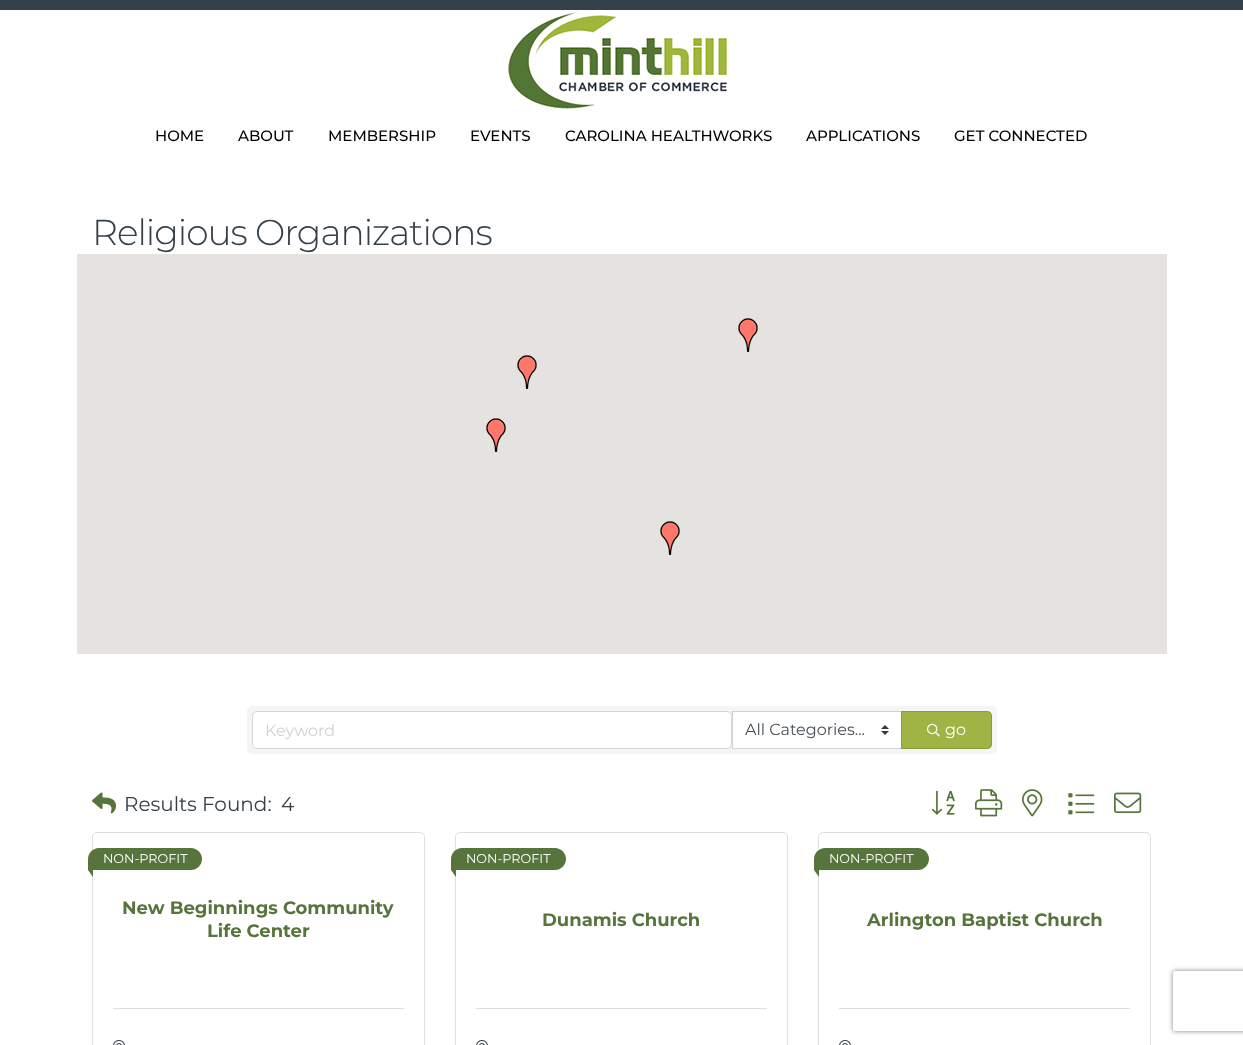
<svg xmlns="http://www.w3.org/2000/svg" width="1243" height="1045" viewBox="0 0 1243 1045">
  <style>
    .t1 { font: 500 15px Montserrat; fill: #000; }
    .t2 { font: 300 36px Montserrat; letter-spacing: -1px; fill: #364049; }
    .t3 { font: 16px Montserrat; fill: #d2d2d2; }
    .t4 { font: 16px Montserrat; fill: #495057; }
    .t5 { font: 16px Montserrat; fill: #fff; }
    .t6 { font: 20px Montserrat; fill: #364049; }
    .t7 { font: 12.75px Montserrat; fill: #fff; }
    .t8 { font: bold 18px Montserrat; fill: #56743b; }
  </style>
  <defs>
    <clipPath id="clip1"><path d="M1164 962H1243V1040H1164ZM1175 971H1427C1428 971 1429 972 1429 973V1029C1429 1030 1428 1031 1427 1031H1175C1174 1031 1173 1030 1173 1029V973C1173 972 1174 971 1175 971Z" clip-rule="evenodd"/></clipPath>
  </defs>
  <rect width="100%" height="100%" fill="#364049"/>
  <rect x="0" y="10" width="1243" height="1035" fill="#fff"/>
  <image x="508" y="12" width="219" height="97" href="images/1.png"/>
  <text x="155" y="141" class="t1">HOME</text>
  <text x="238" y="141" class="t1">ABOUT</text>
  <text x="328" y="141" class="t1">MEMBERSHIP</text>
  <text x="470" y="141" class="t1">EVENTS</text>
  <text x="565" y="141" class="t1">CAROLINA HEALTHWORKS</text>
  <text x="806" y="141" class="t1">APPLICATIONS</text>
  <text x="954" y="141" class="t1">GET CONNECTED</text>
  <text x="92" y="245" class="t2">Religious Organizations</text>
  <rect x="77" y="254" width="1090" height="400" fill="#e5e3df"/>
  <image x="738" y="318" width="20" height="34" href="images/2.png"/>
  <image x="517" y="355" width="20" height="34" href="images/2.png"/>
  <image x="486" y="418" width="20" height="34" href="images/2.png"/>
  <image x="660" y="521" width="20" height="34" href="images/2.png"/>
  <rect x="247" y="706" width="750" height="48" rx="5" fill="#f5f5f5"/>
  <rect x="252.5" y="711.5" width="479" height="37" rx="4.5" fill="#fff" stroke="#d6d6d6"/>
  <text x="265" y="736" class="t3">Keyword</text>
  <rect x="733" y="712" width="168" height="36" fill="#fff"/>
  <image x="881" y="725" width="8" height="10" href="images/3.png"/>
  <rect x="732.5" y="711.5" width="169" height="37" fill="none" stroke="#ced4da"/>
  <text x="745" y="735" class="t4">All Categories...</text>
  <path d="M901 711H987C990 711 992 713 992 716V744C992 747 990 749 987 749H901Z" fill="#9fb445"/>
  <path d="M901.5 711.5H987C989.5 711.5 991.5 713.5 991.5 716V744C991.5 746.5 989.5 748.5 987 748.5H901.5Z" fill="none" stroke="#0000001f"/>
  <image x="927" y="723" width="13" height="14" href="images/4.png"/>
  <text x="945" y="735" class="t5">go</text>
  <image x="92" y="792" width="24" height="22" href="images/5.png"/>
  <text x="124" y="811" class="t6">Results Found:</text>
  <text x="281" y="811" class="t6">4</text>
  <image x="931" y="790" width="24" height="25" href="images/6.png"/>
  <image x="975" y="789" width="28" height="28" href="images/7.png"/>
  <image x="1022" y="789" width="21" height="28" href="images/8.png"/>
  <image x="1068" y="793" width="27" height="22" href="images/9.png"/>
  <image x="1114" y="792" width="28" height="21" href="images/10.png"/>
  <rect x="92.5" y="832.5" width="332" height="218" rx="4.5" fill="none" stroke="#dfdfdf"/>
  <path d="M99 848H191C197 848 202 853 202 859C202 865 197 870 191 870H88.5C88 870 88 870 88 869.5V859C88 853 93 848 99 848Z" fill="#56743b"/>
  <text x="103" y="863" class="t7">NON-PROFIT</text>
  <path d="M93 863V877L88 870Z" fill="#56743b"/>
  <text x="122" y="914" class="t8">New Beginnings Community</text>
  <text x="207" y="937" class="t8">Life Center</text>
  <rect x="113" y="1008" width="291" height="1" fill="#dfdfdf"/>
  <image x="113" y="1040" width="12" height="5" href="images/11.png"/>
  <rect x="455.5" y="832.5" width="332" height="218" rx="4.5" fill="none" stroke="#dfdfdf"/>
  <path d="M462 848H555C561 848 566 853 566 859C566 865 561 870 555 870H451.5C451 870 451 870 451 869.5V859C451 853 456 848 462 848Z" fill="#56743b"/>
  <text x="466" y="863" class="t7">NON-PROFIT</text>
  <path d="M456 863V877L451 870Z" fill="#56743b"/>
  <text x="542" y="926" class="t8">Dunamis Church</text>
  <rect x="476" y="1008" width="291" height="1" fill="#dfdfdf"/>
  <image x="476" y="1040" width="12" height="5" href="images/11.png"/>
  <rect x="818.5" y="832.5" width="332" height="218" rx="4.5" fill="none" stroke="#dfdfdf"/>
  <path d="M825 848H918C924 848 929 853 929 859C929 865 924 870 918 870H814.5C814 870 814 870 814 869.5V859C814 853 819 848 825 848Z" fill="#56743b"/>
  <text x="829" y="863" class="t7">NON-PROFIT</text>
  <path d="M819 863V877L814 870Z" fill="#56743b"/>
  <text x="867" y="926" class="t8">Arlington Baptist Church</text>
  <rect x="839" y="1008" width="291" height="1" fill="#dfdfdf"/>
  <image x="839" y="1040" width="12" height="5" href="images/11.png"/>
  <g clip-path="url(#clip1)">
    <rect x="1173" y="971" width="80" height="60" rx="2" fill="#808080" filter="blur(2.5px)"/>
  </g>
</svg>
